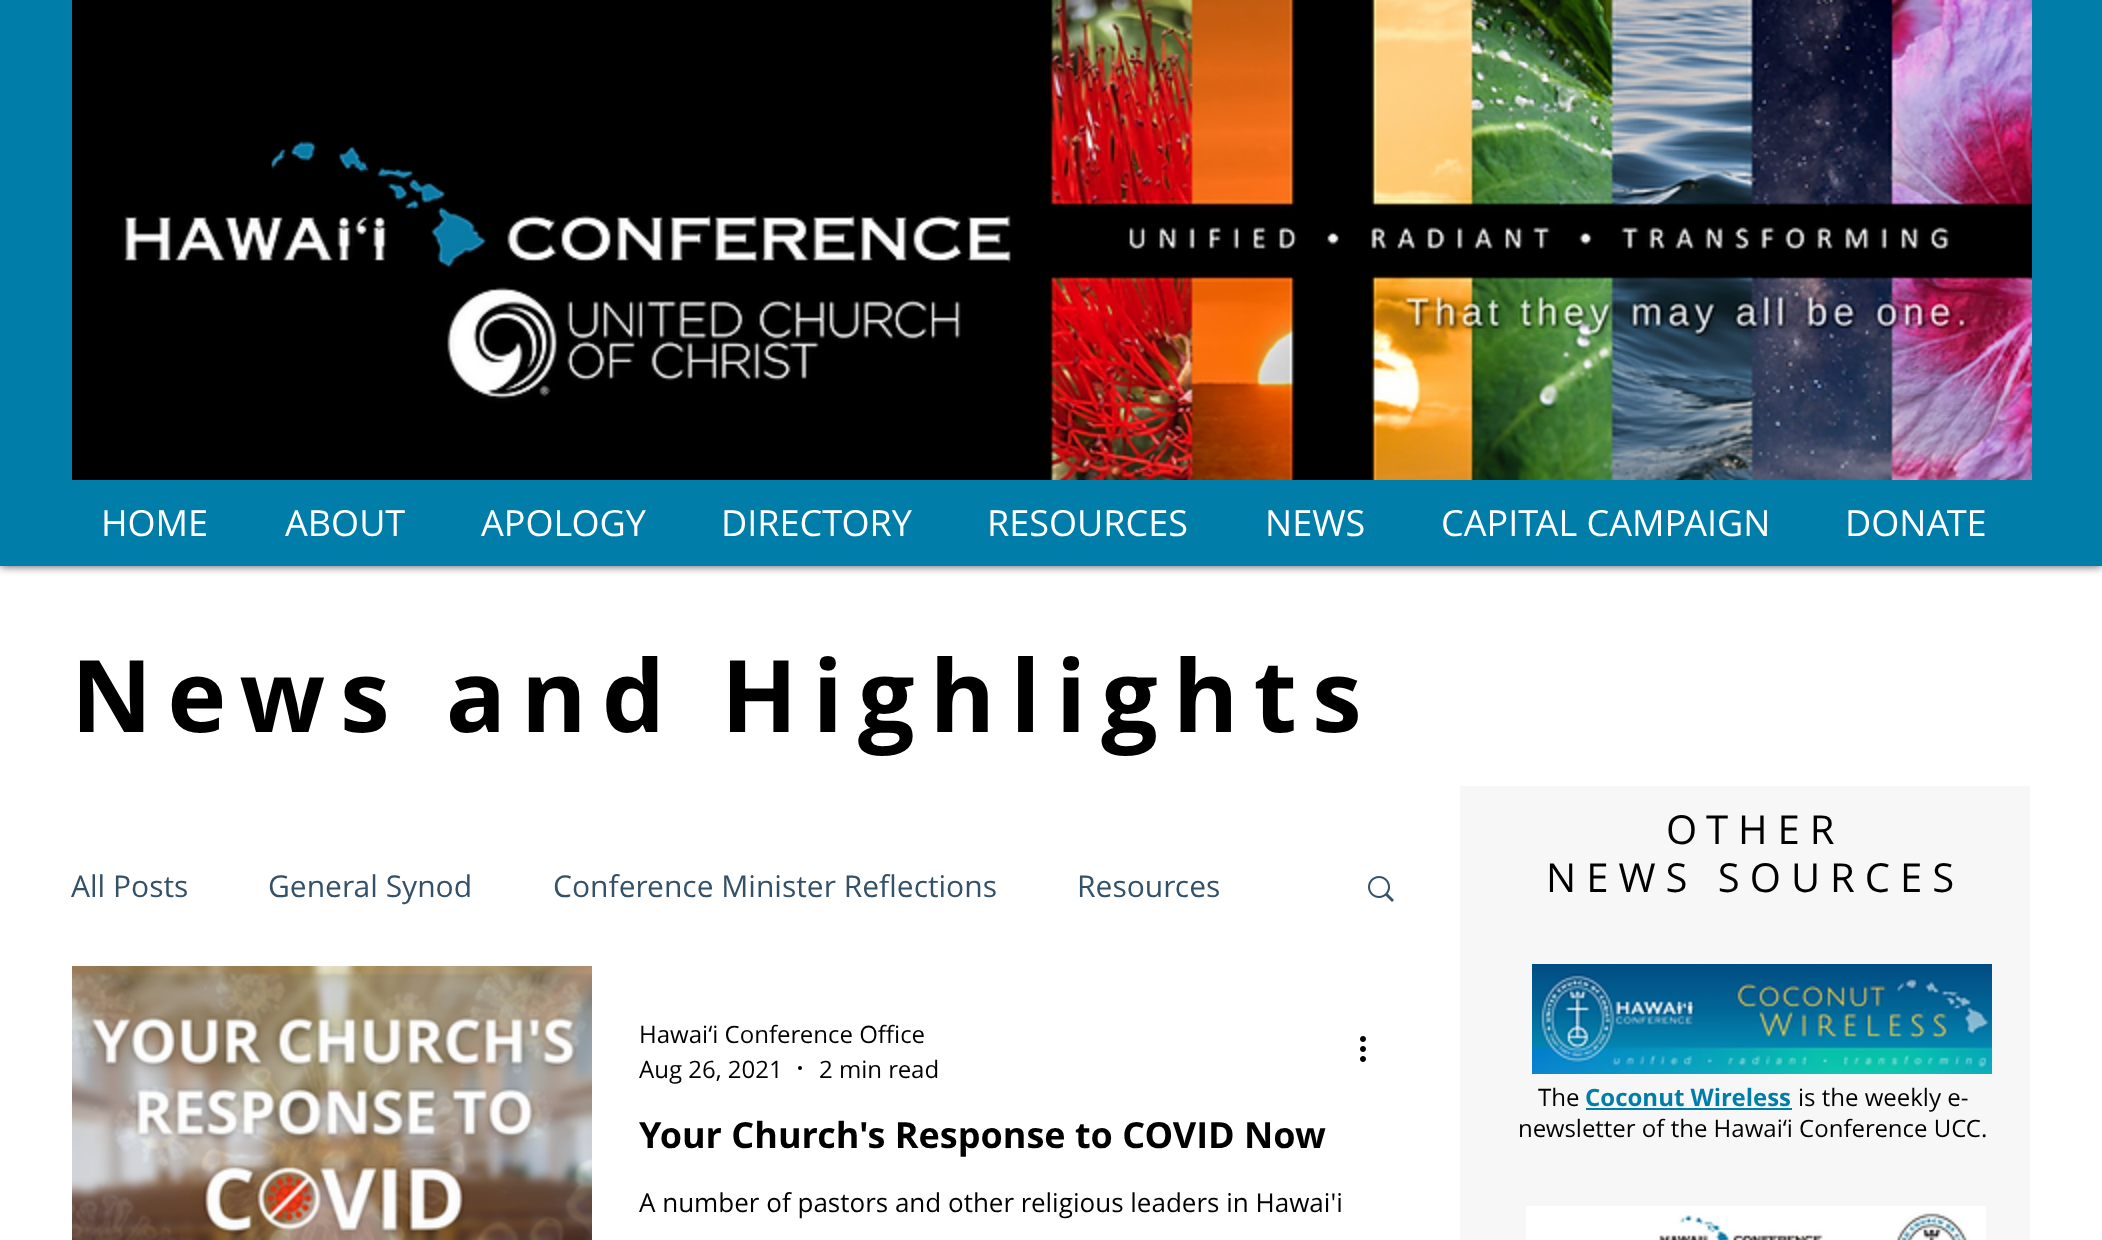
<svg xmlns="http://www.w3.org/2000/svg" width="2102" height="1240" viewBox="0 0 2102 1240">
  <style>
    .t1 { font: 36px Open Sans; fill: #fff; }
    .t2 { font: bold 100px Open Sans; letter-spacing: 15px; fill: #000; }
    .t3 { font: 30px Open Sans; fill: #335168; }
    .t4 { font: 24px Open Sans; fill: #000; }
    .t5 { font: bold 36px Open Sans; fill: #000; }
    .t6 { font: 26px Open Sans; fill: #000; }
    .t7 { font: 40px Open Sans; letter-spacing: 10px; fill: #000; }
    .t8 { font: bold 24px Open Sans; fill: #007ea9; }
  </style>
  <rect width="100%" height="100%" fill="#fff"/>
  <rect x="0" y="0" width="2102" height="566" fill="#000000b3" filter="blur(5px)"/>
  <rect x="0" y="0" width="2102" height="566" fill="#007ea9"/>
  <image x="72" y="0" width="1960" height="480" href="images/1.png"/>
  <text x="101" y="536" class="t1">HOME</text>
  <text x="285" y="536" class="t1">ABOUT</text>
  <text x="481" y="536" class="t1">APOLOGY</text>
  <text x="721" y="536" class="t1">DIRECTORY</text>
  <text x="987" y="536" class="t1">RESOURCES</text>
  <text x="1265" y="536" class="t1">NEWS</text>
  <text x="1441" y="536" class="t1">CAPITAL CAMPAIGN</text>
  <text x="1845" y="536" class="t1">DONATE</text>
  <text x="71" y="732" class="t2">News and Highlights</text>
  <text x="71" y="897" class="t3">All Posts</text>
  <text x="268" y="897" class="t3">General Synod</text>
  <text x="553" y="897" class="t3">Conference Minister Reflections</text>
  <text x="1077" y="897" class="t3">Resources</text>
  <image x="1368" y="876" width="26" height="26" href="images/2.png"/>
  <image x="72" y="966" width="520" height="274" href="images/3.png"/>
  <text x="639" y="1043" class="t4">Hawai‘i Conference Office</text>
  <text x="639" y="1078" class="t4">Aug 26, 2021</text>
  <circle cx="800" cy="1068" r="2" fill="#000"/>
  <text x="819" y="1078" class="t4">2 min read</text>
  <image x="1360" y="1036" width="6" height="26" href="images/4.png"/>
  <text x="639" y="1148" class="t5">Your Church's Response to COVID Now</text>
  <text x="639" y="1212" class="t6">A number of pastors and other religious leaders in Hawai'i</text>
  <rect x="1460" y="786" width="570" height="454" fill="#f7f7f7"/>
  <text x="1666" y="844" class="t7">OTHER</text>
  <text x="1546" y="892" class="t7">NEWS SOURCES</text>
  <image x="1532" y="964" width="460" height="110" href="images/5.png"/>
  <text x="1538" y="1106" class="t4">The</text>
  <text x="1585" y="1106" class="t8">Coconut Wireless</text>
  <rect x="1586" y="1108" width="206" height="2" fill="#007ea9"/>
  <text x="1798" y="1106" class="t4">is the weekly e-</text>
  <text x="1518" y="1137" class="t4">newsletter of the Hawai‘i Conference UCC.</text>
  <image x="1526" y="1206" width="460" height="34" href="images/6.png"/>
</svg>
